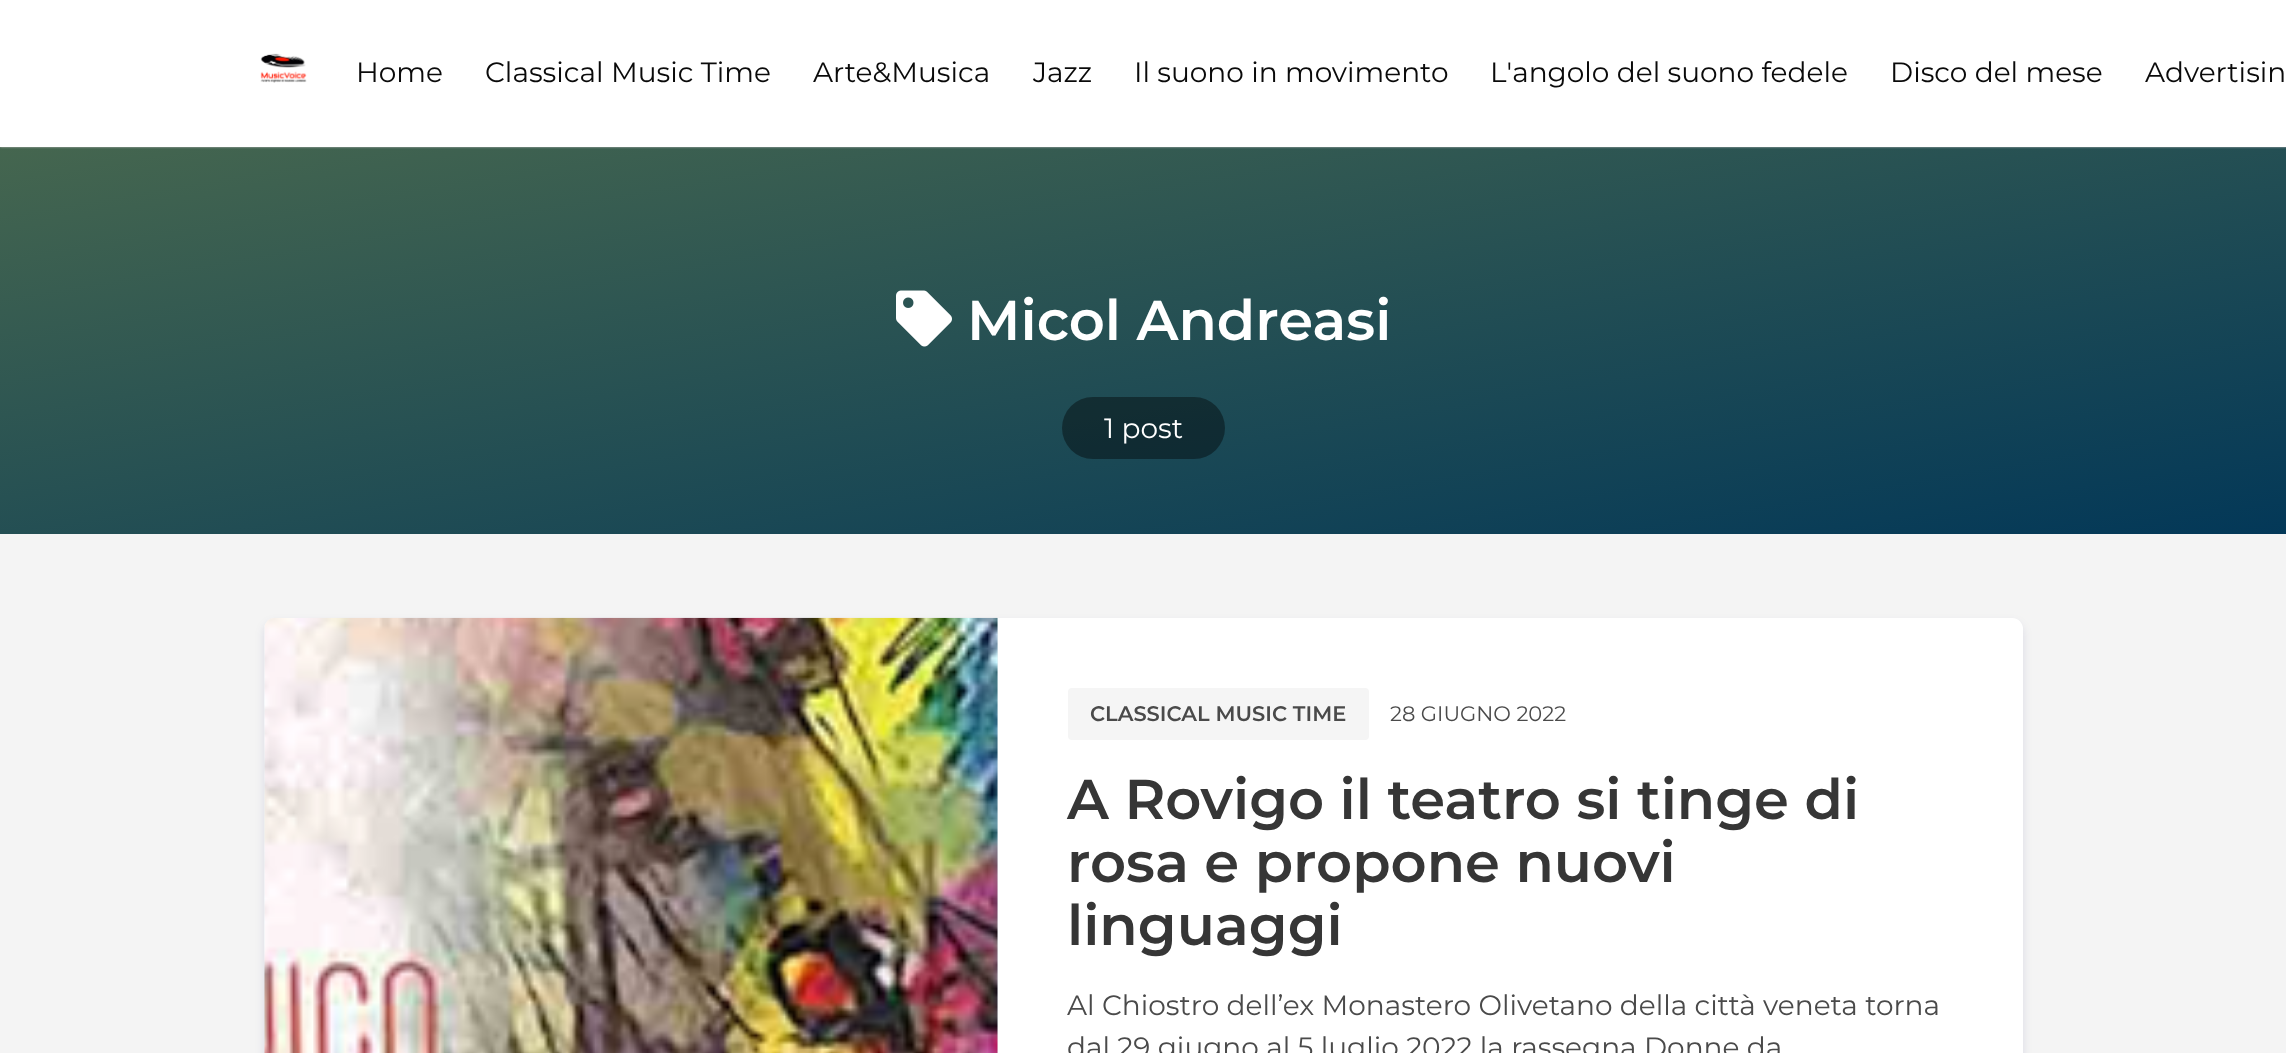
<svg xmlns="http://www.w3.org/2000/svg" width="2286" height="1053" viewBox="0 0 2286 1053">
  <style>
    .t1 { font: 28px Montserrat; fill: #0a0a0a; }
    .t2 { font: 600 56px Montserrat; fill: #fff; }
    .t3 { font: 28px Montserrat; fill: #fff; }
    .t4 { font: 600 21px Montserrat; fill: #4a4a4a; }
    .t5 { font: 21px Montserrat; fill: #4a4a4a; }
    .t6 { font: 600 56px Montserrat; fill: #363636; }
    .t7 { font: 28px Montserrat; fill: #4a4a4a; }
  </style>
  <defs>
    <linearGradient id="g1" gradientUnits="userSpaceOnUse" x1="1080" y1="-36" x2="1207" y2="716"><stop offset="0" stop-color="#45664f"/><stop offset="1" stop-color="#033858"/></linearGradient>
    <clipPath id="clip1"><rect x="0" y="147" width="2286" height="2"/></clipPath>
  </defs>
  <rect width="100%" height="100%" fill="#fff"/>
  <rect x="0" y="534" width="2286" height="519" fill="#f4f4f4"/>
  <rect x="0" y="147" width="2286" height="387" fill="url(#g1)"/>
  <g clip-path="url(#clip1)">
    <rect x="0" y="0" width="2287" height="147" fill="#bbb" filter="blur(1px)"/>
  </g>
  <image x="260" y="53" width="47" height="30" href="images/1.png"/>
  <text x="356" y="82" class="t1">Home</text>
  <text x="485" y="82" class="t1">Classical Music Time</text>
  <text x="813" y="82" class="t1">Arte&amp;Musica</text>
  <text x="1033" y="82" class="t1">Jazz</text>
  <text x="1134" y="82" class="t1">Il suono in movimento</text>
  <text x="1490" y="82" class="t1">L'angolo del suono fedele</text>
  <text x="1890" y="82" class="t1">Disco del mese</text>
  <text x="2145" y="82" class="t1">Advertisin</text>
  <image x="896" y="290" width="56" height="57" href="images/2.png"/>
  <text x="967" y="340" class="t2">Micol Andreasi</text>
  <rect x="1062" y="397" width="163" height="62" rx="31" fill="#00000066"/>
  <text x="1104" y="438" class="t3">1 post</text>
  <rect x="264" y="623" width="1759" height="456" rx="11" fill="#0c0c5e1a" filter="blur(5px)"/>
  <rect x="264" y="618" width="1759" height="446" rx="11" fill="#fff"/>
  <path d="M275 618H998V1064H275C269 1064 264 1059 264 1053V629C264 623 269 618 275 618Z" fill="#e9f0f3"/>
  <image x="264" y="617" width="734" height="436" href="images/3.png"/>
  <rect x="1068" y="688" width="301" height="52" rx="4" fill="#f5f5f5"/>
  <text x="1090" y="721" class="t4">CLASSICAL MUSIC TIME</text>
  <text x="1390" y="721" class="t5">28 GIUGNO 2022</text>
  <text x="1067" y="819" class="t6">A Rovigo il teatro si tinge di</text>
  <text x="1067" y="882" class="t6">rosa e propone nuovi</text>
  <text x="1067" y="945" class="t6">linguaggi</text>
  <text x="1067" y="1015" class="t7">Al Chiostro dell’ex Monastero Olivetano della città veneta torna</text>
  <text x="1067" y="1057" class="t7">dal 29 giugno al 5 luglio 2022 la rassegna Donne da</text>
</svg>
